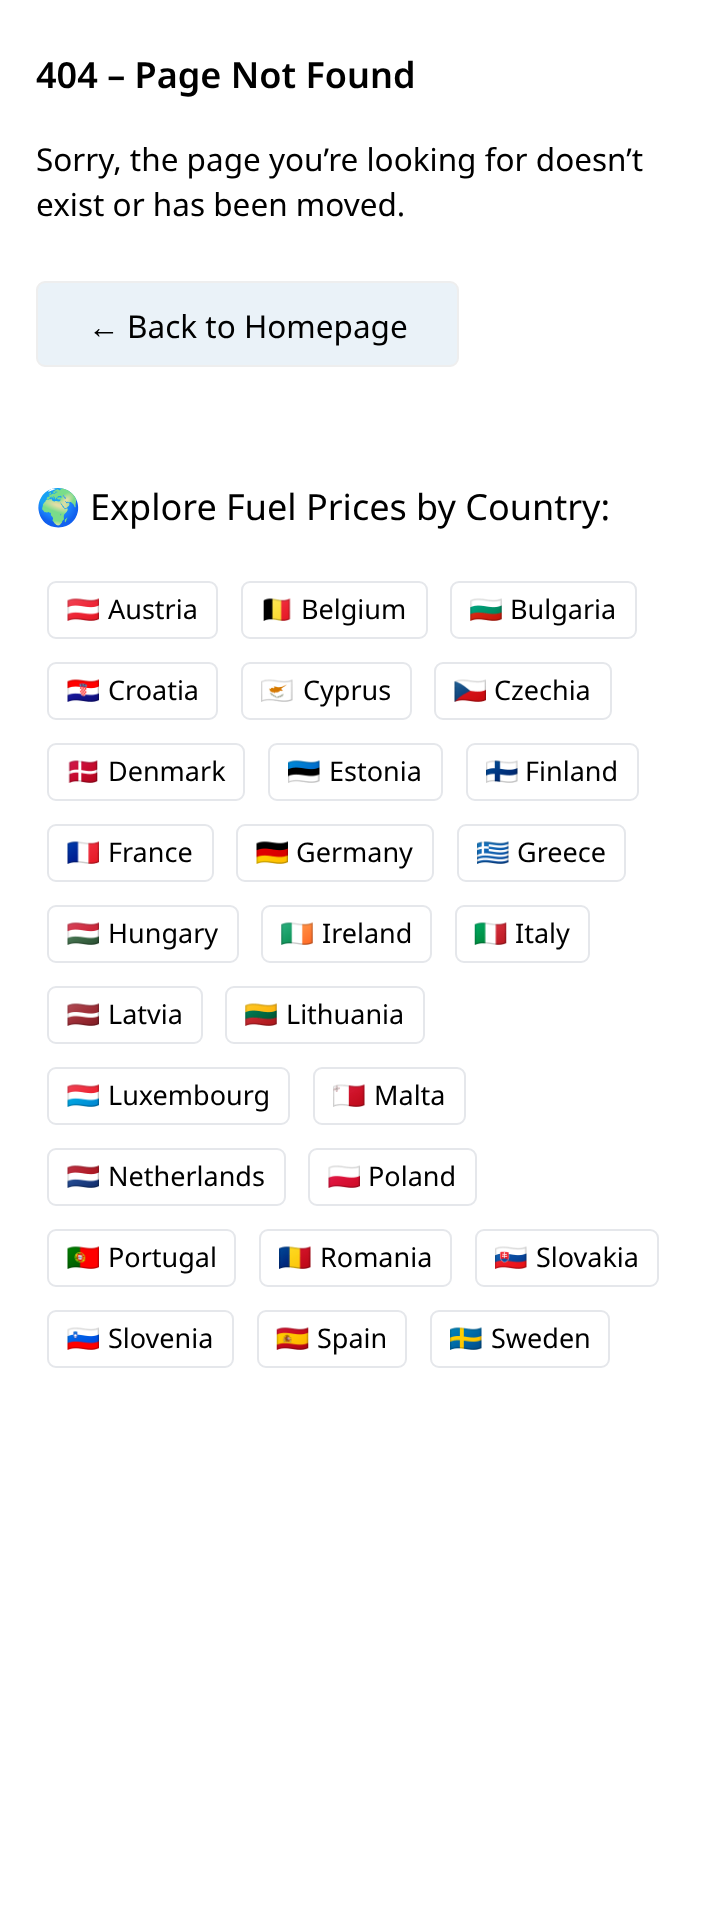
<svg xmlns="http://www.w3.org/2000/svg" width="710" height="1920" viewBox="0 0 710 1920">
  <style>
    .t1 { font: 600 36px Noto Sans; fill: #000; }
    .t2 { font: 31.5px Noto Sans; fill: #000; }
    .t3 { font: 31.5px Liberation Sans; fill: #000; }
    .t4 { font: 36px Noto Color Emoji; fill: #000; }
    .t5 { font: 36px Noto Sans; fill: #000; }
    .t6 { font: 27px Noto Sans; fill: #000; }
  </style>
  <rect width="100%" height="100%" fill="#fff"/>
  <text x="36" y="88" class="t1">404 – Page Not Found</text>
  <text x="36" y="171" class="t2">Sorry, the page you’re looking for doesn’t</text>
  <text x="36" y="216" class="t2">exist or has been moved.</text>
  <rect x="37" y="282" width="421" height="84" rx="8" fill="#eaf2f8" stroke="#eee" stroke-width="2"/>
  <text x="88" y="338" class="t3">←</text>
  <text x="127" y="338" class="t2">Back to Homepage</text>
  <text x="36" y="520" class="t4">🌍</text>
  <text x="90" y="520" class="t5">Explore Fuel Prices by Country:</text>
  <rect x="48" y="582" width="169" height="56" rx="8" fill="none" stroke="#e5e7eb" stroke-width="2"/>
  <image x="67" y="598" width="32" height="23" href="images/1.png"/>
  <text x="108" y="619" class="t6">Austria</text>
  <rect x="242" y="582" width="185" height="56" rx="8" fill="none" stroke="#e5e7eb" stroke-width="2"/>
  <image x="263" y="598" width="28" height="23" href="images/2.png"/>
  <text x="301" y="619" class="t6">Belgium</text>
  <rect x="451" y="582" width="185" height="56" rx="8" fill="none" stroke="#e5e7eb" stroke-width="2"/>
  <image x="470" y="598" width="32" height="23" href="images/3.png"/>
  <text x="510" y="619" class="t6">Bulgaria</text>
  <rect x="48" y="663" width="169" height="56" rx="8" fill="none" stroke="#e5e7eb" stroke-width="2"/>
  <image x="67" y="679" width="32" height="23" href="images/4.png"/>
  <text x="108" y="700" class="t6">Croatia</text>
  <rect x="242" y="663" width="169" height="56" rx="8" fill="none" stroke="#e5e7eb" stroke-width="2"/>
  <image x="261" y="679" width="32" height="23" href="images/5.png"/>
  <text x="303" y="700" class="t6">Cyprus</text>
  <rect x="435" y="663" width="176" height="56" rx="8" fill="none" stroke="#e5e7eb" stroke-width="2"/>
  <image x="454" y="679" width="32" height="23" href="images/6.png"/>
  <text x="494" y="700" class="t6">Czechia</text>
  <rect x="48" y="744" width="196" height="56" rx="8" fill="none" stroke="#e5e7eb" stroke-width="2"/>
  <image x="68" y="760" width="30" height="23" href="images/7.png"/>
  <text x="108" y="781" class="t6">Denmark</text>
  <rect x="269" y="744" width="173" height="56" rx="8" fill="none" stroke="#e5e7eb" stroke-width="2"/>
  <image x="288" y="760" width="32" height="23" href="images/8.png"/>
  <text x="329" y="781" class="t6">Estonia</text>
  <rect x="467" y="744" width="171" height="56" rx="8" fill="none" stroke="#e5e7eb" stroke-width="2"/>
  <image x="486" y="760" width="32" height="23" href="images/9.png"/>
  <text x="525" y="781" class="t6">Finland</text>
  <rect x="48" y="825" width="165" height="56" rx="8" fill="none" stroke="#e5e7eb" stroke-width="2"/>
  <image x="67" y="841" width="32" height="23" href="images/10.png"/>
  <text x="108" y="862" class="t6">France</text>
  <rect x="237" y="825" width="196" height="56" rx="8" fill="none" stroke="#e5e7eb" stroke-width="2"/>
  <image x="256" y="841" width="32" height="23" href="images/11.png"/>
  <text x="296" y="862" class="t6">Germany</text>
  <rect x="458" y="825" width="167" height="56" rx="8" fill="none" stroke="#e5e7eb" stroke-width="2"/>
  <image x="477" y="841" width="32" height="23" href="images/12.png"/>
  <text x="517" y="862" class="t6">Greece</text>
  <rect x="48" y="906" width="190" height="56" rx="8" fill="none" stroke="#e5e7eb" stroke-width="2"/>
  <image x="67" y="922" width="32" height="23" href="images/13.png"/>
  <text x="108" y="943" class="t6">Hungary</text>
  <rect x="262" y="906" width="169" height="56" rx="8" fill="none" stroke="#e5e7eb" stroke-width="2"/>
  <image x="281" y="922" width="32" height="23" href="images/14.png"/>
  <text x="322" y="943" class="t6">Ireland</text>
  <rect x="456" y="906" width="133" height="56" rx="8" fill="none" stroke="#e5e7eb" stroke-width="2"/>
  <image x="474" y="922" width="33" height="23" href="images/15.png"/>
  <text x="515" y="943" class="t6">Italy</text>
  <rect x="48" y="987" width="154" height="56" rx="8" fill="none" stroke="#e5e7eb" stroke-width="2"/>
  <image x="67" y="1003" width="32" height="23" href="images/16.png"/>
  <text x="108" y="1024" class="t6">Latvia</text>
  <rect x="226" y="987" width="198" height="56" rx="8" fill="none" stroke="#e5e7eb" stroke-width="2"/>
  <image x="245" y="1003" width="32" height="23" href="images/17.png"/>
  <text x="286" y="1024" class="t6">Lithuania</text>
  <rect x="48" y="1068" width="241" height="56" rx="8" fill="none" stroke="#e5e7eb" stroke-width="2"/>
  <image x="67" y="1084" width="32" height="23" href="images/18.png"/>
  <text x="108" y="1105" class="t6">Luxembourg</text>
  <rect x="314" y="1068" width="151" height="56" rx="8" fill="none" stroke="#e5e7eb" stroke-width="2"/>
  <image x="333" y="1084" width="32" height="23" href="images/19.png"/>
  <text x="374" y="1105" class="t6">Malta</text>
  <rect x="48" y="1149" width="237" height="56" rx="8" fill="none" stroke="#e5e7eb" stroke-width="2"/>
  <image x="67" y="1165" width="32" height="23" href="images/20.png"/>
  <text x="108" y="1186" class="t6">Netherlands</text>
  <rect x="309" y="1149" width="167" height="56" rx="8" fill="none" stroke="#e5e7eb" stroke-width="2"/>
  <image x="328" y="1165" width="32" height="23" href="images/21.png"/>
  <text x="368" y="1186" class="t6">Poland</text>
  <rect x="48" y="1230" width="187" height="56" rx="8" fill="none" stroke="#e5e7eb" stroke-width="2"/>
  <image x="67" y="1246" width="32" height="23" href="images/22.png"/>
  <text x="108" y="1267" class="t6">Portugal</text>
  <rect x="260" y="1230" width="191" height="56" rx="8" fill="none" stroke="#e5e7eb" stroke-width="2"/>
  <image x="279" y="1246" width="32" height="23" href="images/23.png"/>
  <text x="320" y="1267" class="t6">Romania</text>
  <rect x="476" y="1230" width="182" height="56" rx="8" fill="none" stroke="#e5e7eb" stroke-width="2"/>
  <image x="495" y="1246" width="32" height="23" href="images/24.png"/>
  <text x="536" y="1267" class="t6">Slovakia</text>
  <rect x="48" y="1311" width="185" height="56" rx="8" fill="none" stroke="#e5e7eb" stroke-width="2"/>
  <image x="67" y="1327" width="32" height="23" href="images/25.png"/>
  <text x="108" y="1348" class="t6">Slovenia</text>
  <rect x="258" y="1311" width="148" height="56" rx="8" fill="none" stroke="#e5e7eb" stroke-width="2"/>
  <image x="276" y="1327" width="33" height="23" href="images/26.png"/>
  <text x="317" y="1348" class="t6">Spain</text>
  <rect x="431" y="1311" width="178" height="56" rx="8" fill="none" stroke="#e5e7eb" stroke-width="2"/>
  <image x="450" y="1327" width="32" height="23" href="images/27.png"/>
  <text x="491" y="1348" class="t6">Sweden</text>
</svg>
